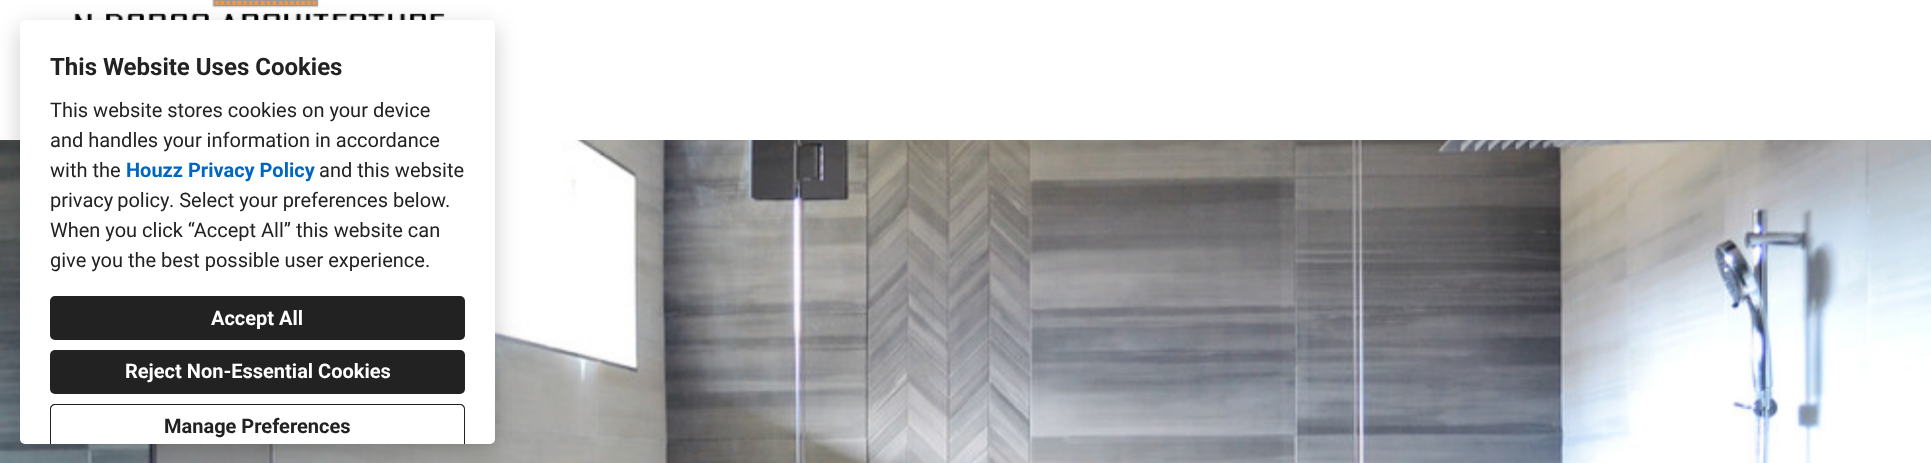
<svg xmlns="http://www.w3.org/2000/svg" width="1931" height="463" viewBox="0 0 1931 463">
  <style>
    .t1 { font: bold 24px Roboto; fill: #222; }
    .t2 { font: 20px Roboto; fill: #222; }
    .t3 { font: bold 20px Roboto; fill: #0066c3; }
    .t4 { font: bold 20px Roboto; fill: #fff; }
    .t5 { font: bold 20px Roboto; fill: #222; }
  </style>
  <rect width="100%" height="100%" fill="#fff"/>
  <image x="74" y="0" width="371" height="20" href="images/1.png"/>
  <image x="0" y="140" width="1931" height="323" href="images/2.png"/>
  <rect x="20" y="28" width="475" height="423" rx="5" fill="#00000033" filter="blur(12.5px)"/>
  <rect x="20" y="20" width="475" height="424" rx="5" fill="#fff"/>
  <text x="50" y="75" class="t1">This Website Uses Cookies</text>
  <text x="50" y="117" class="t2">This website stores cookies on your device</text>
  <text x="50" y="147" class="t2">and handles your information in accordance</text>
  <text x="50" y="177" class="t2">with the</text>
  <text x="126" y="177" class="t3">Houzz Privacy Policy</text>
  <text x="319" y="177" class="t2">and this website</text>
  <text x="50" y="207" word-spacing="-1" class="t2">privacy policy</text>
  <text x="169" y="207" class="t2">. Select your preferences below.</text>
  <text x="50" y="237" class="t2">When you click “Accept All” this website can</text>
  <text x="50" y="267" class="t2">give you the best possible user experience.</text>
  <rect x="50" y="296" width="415" height="44" rx="5" fill="#222"/>
  <text x="211" y="325" class="t4">Accept All</text>
  <rect x="50" y="350" width="415" height="44" rx="5" fill="#222"/>
  <text x="125" y="378" class="t4">Reject Non-Essential Cookies</text>
  <path d="M55 404C52 404 50 406 50 409V444H51V409C51 407 53 405 55 405H460C462 405 464 407 464 409V444H465V409C465 406 463 404 460 404Z" fill="#222"/>
  <text x="164" y="433" class="t5">Manage Preferences</text>
</svg>
